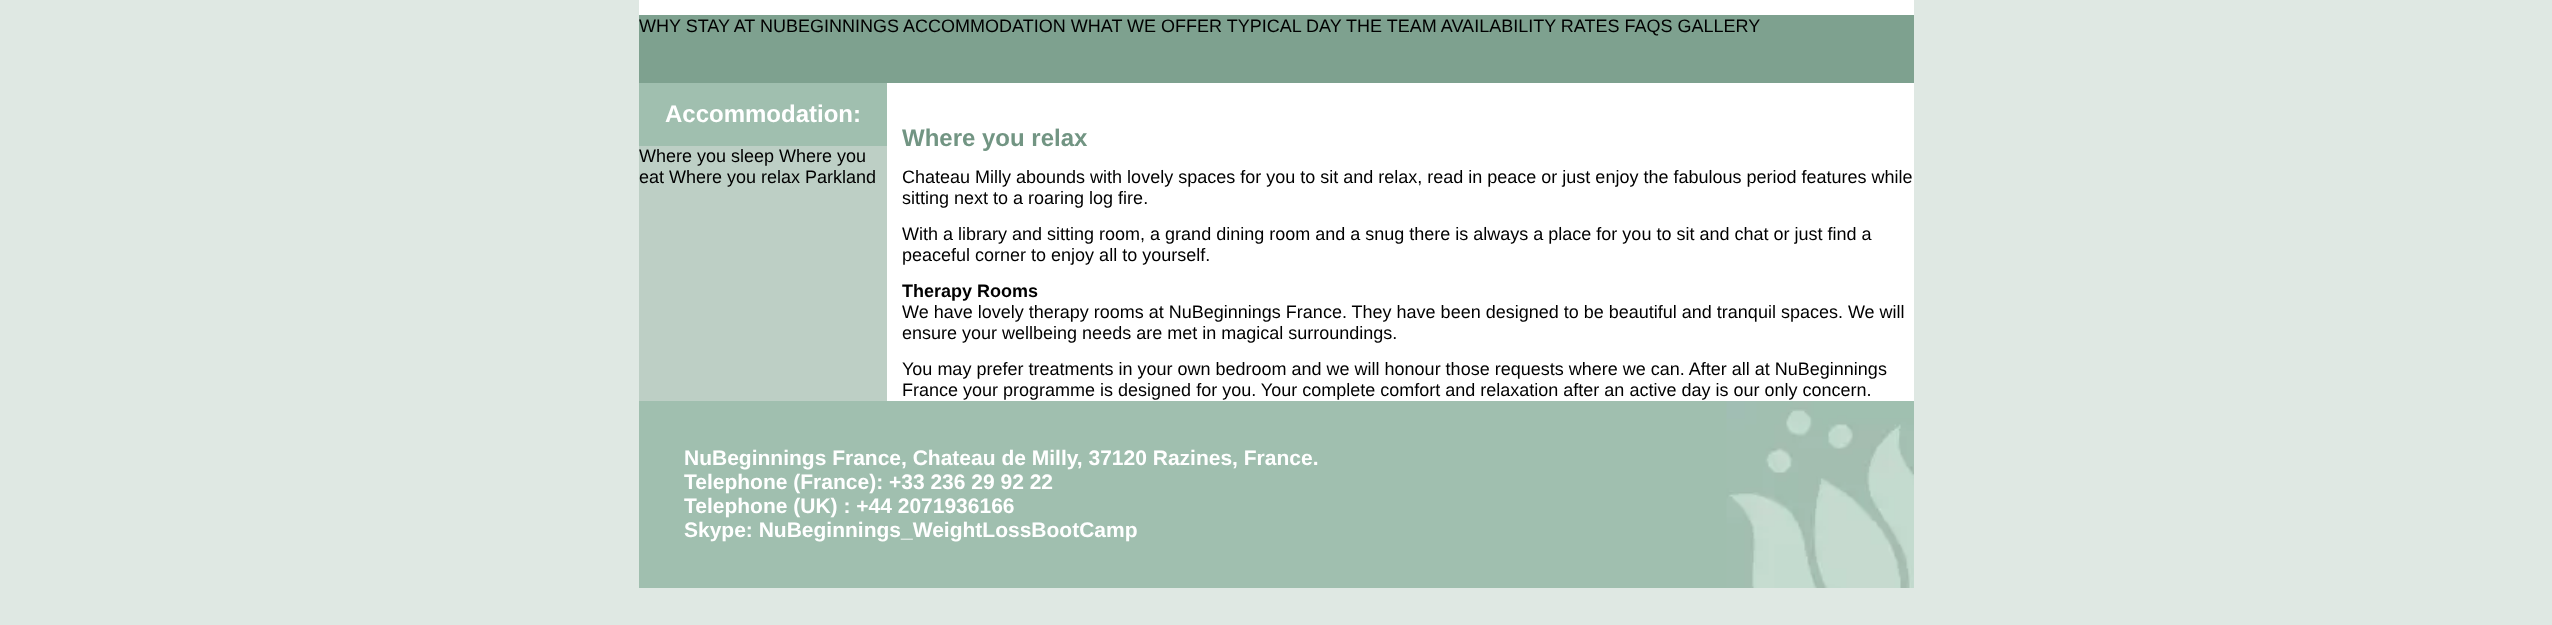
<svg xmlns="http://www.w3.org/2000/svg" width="2552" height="625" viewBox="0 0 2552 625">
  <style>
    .t1 { font: 18px Liberation Sans; fill: #000; }
    .t2 { font: bold 24px Liberation Sans; fill: #fff; }
    .t3 { font: bold 24px Liberation Sans; fill: #729583; }
    .t4 { font: bold 18px Liberation Sans; fill: #000; }
    .t5 { font: bold 21px Liberation Sans; fill: #fff; }
  </style>
  <rect width="100%" height="100%" fill="#dfe8e3"/>
  <rect x="639" y="0" width="1275" height="15" fill="#fff"/>
  <rect x="639" y="15" width="1275" height="68" fill="#7ea18f"/>
  <text x="639" y="32" class="t1">WHY STAY AT NUBEGINNINGS ACCOMMODATION WHAT WE OFFER TYPICAL DAY THE TEAM AVAILABILITY RATES FAQS GALLERY</text>
  <rect x="639" y="146" width="248" height="255" fill="#bdcfc5"/>
  <rect x="639" y="83" width="248" height="63" fill="#a0bfaf"/>
  <text x="665" y="122" class="t2">Accommodation:</text>
  <text x="639" y="162" class="t1">Where you sleep Where you</text>
  <text x="639" y="183" class="t1">eat Where you relax Parkland</text>
  <rect x="887" y="83" width="1027" height="318" fill="#fff"/>
  <text x="902" y="146" class="t3">Where you relax</text>
  <text x="902" y="183" class="t1">Chateau Milly abounds with lovely spaces for you to sit and relax, read in peace or just enjoy the fabulous period features while</text>
  <text x="902" y="204" class="t1">sitting next to a roaring log fire.</text>
  <text x="902" y="240" class="t1">With a library and sitting room, a grand dining room and a snug there is always a place for you to sit and chat or just find a</text>
  <text x="902" y="261" class="t1">peaceful corner to enjoy all to yourself.</text>
  <text x="902" y="297" class="t4">Therapy Rooms</text>
  <text x="902" y="318" class="t1">We have lovely therapy rooms at NuBeginnings France. They have been designed to be beautiful and tranquil spaces. We will</text>
  <text x="902" y="339" class="t1">ensure your wellbeing needs are met in magical surroundings.</text>
  <text x="902" y="375" class="t1">You may prefer treatments in your own bedroom and we will honour those requests where we can. After all at NuBeginnings</text>
  <text x="902" y="396" class="t1">France your programme is designed for you. Your complete comfort and relaxation after an active day is our only concern.</text>
  <rect x="639" y="401" width="1088" height="187" fill="#a0bfaf"/>
  <image x="1726" y="401" width="188" height="187" href="images/1.png"/>
  <text x="684" y="465" class="t5">NuBeginnings France, Chateau de Milly, 37120 Razines, France.</text>
  <text x="684" y="489" class="t5">Telephone (France): +33 236 29 92 22</text>
  <text x="684" y="513" class="t5">Telephone (UK) : +44 2071936166</text>
  <text x="684" y="537" class="t5">Skype: NuBeginnings_WeightLossBootCamp</text>
</svg>
